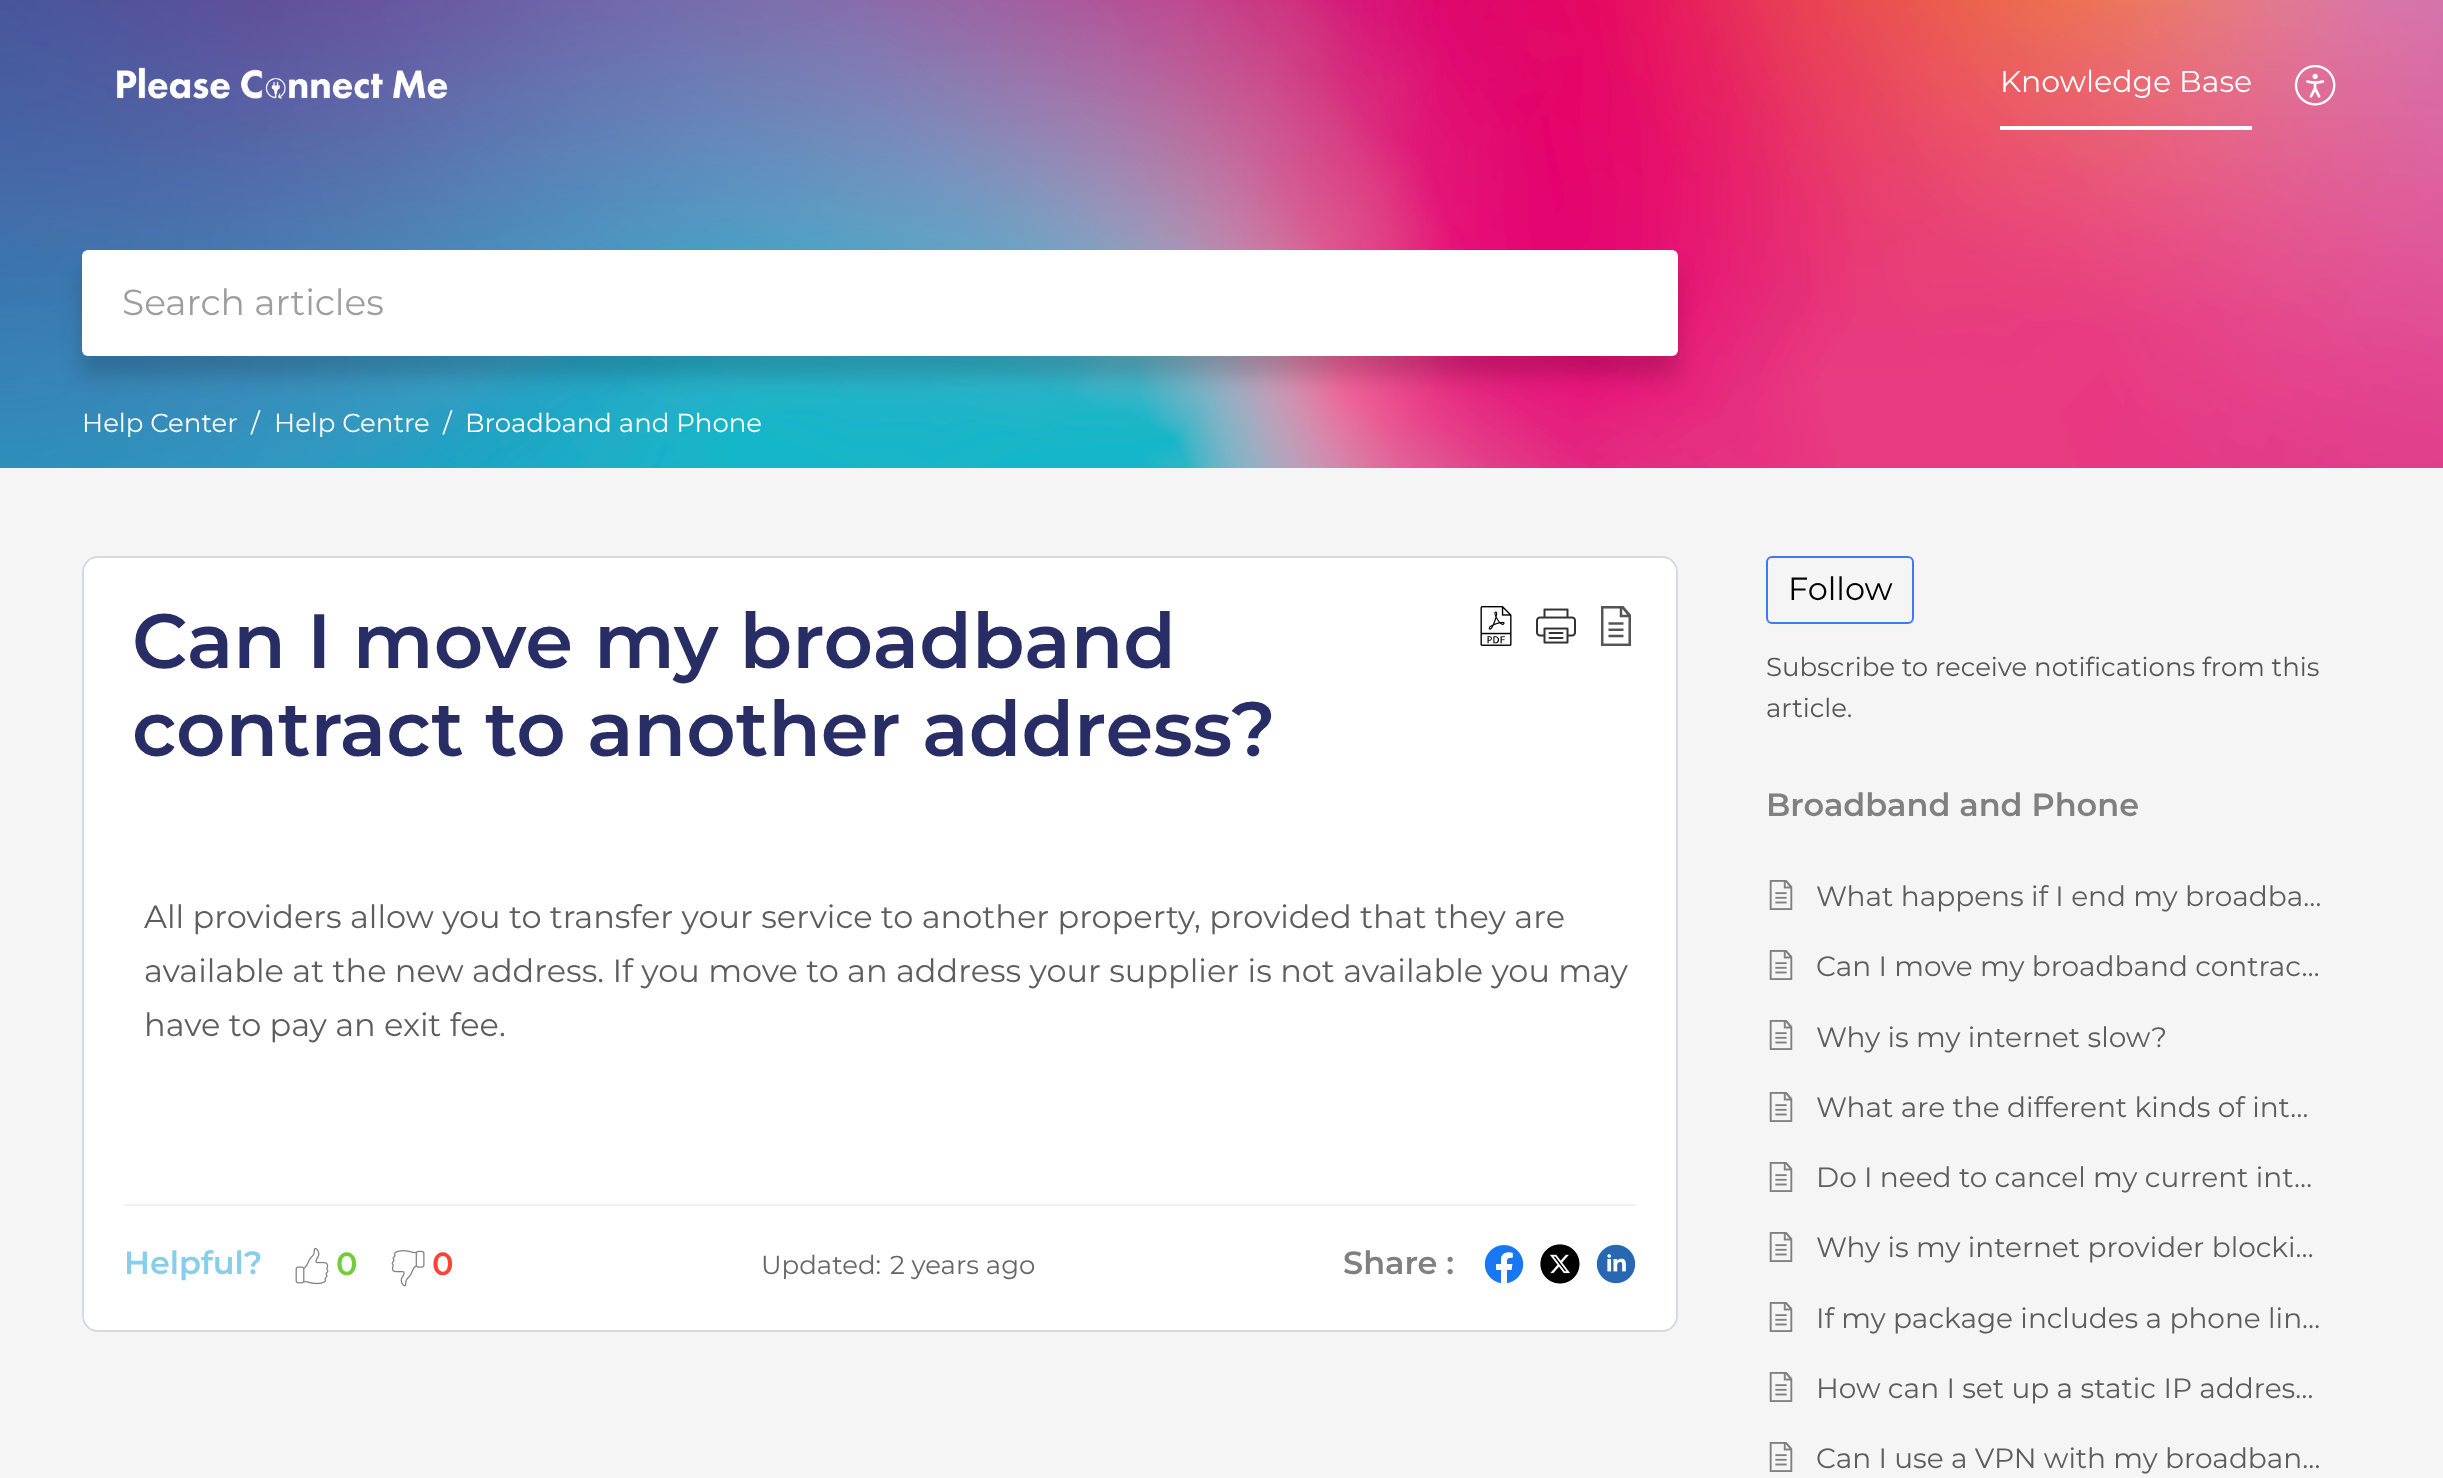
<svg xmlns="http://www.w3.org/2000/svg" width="2443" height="1478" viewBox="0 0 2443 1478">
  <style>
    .t1 { font: 30px Montserrat; fill: #fff; }
    .t2 { font: 36px Montserrat; fill: #9e9e9e; }
    .t3 { font: 26px Montserrat; fill: #fff; }
    .t4 { font: 600 76.75px Montserrat; fill: #282d66; }
    .t5 { font: 32px Montserrat; fill: #5d5d5d; }
    .t6 { font: 600 32px Montserrat; fill: #87ceeb; }
    .t7 { font: 600 32px Montserrat; fill: #73cd3b; }
    .t8 { font: 600 32px Montserrat; fill: #ff4338; }
    .t9 { font: 26px Montserrat; fill: #666; }
    .t10 { font: 600 32px Montserrat; fill: #808080; }
    .t11 { font: 32px Montserrat; fill: #000; }
    .t12 { font: 26px Montserrat; fill: #555; }
    .t13 { font: 28px Montserrat; fill: #5d5d5d; }
  </style>
  <rect width="100%" height="100%" fill="#f5f5f5"/>
  <image x="0" y="0" width="2443" height="468" href="images/1.png"/>
  <image x="116" y="67" width="332" height="32" href="images/2.png"/>
  <rect x="2000" y="126" width="252" height="4" fill="#fff"/>
  <text x="2000" y="92" class="t1">Knowledge Base</text>
  <image x="2294" y="64" width="42" height="42" href="images/3.png"/>
  <rect x="82" y="270" width="1596" height="106" fill="#00000029" filter="blur(10px)"/>
  <rect x="82" y="250" width="1596" height="106" rx="6" fill="#fff"/>
  <text x="122" y="315" class="t2">Search articles</text>
  <text x="82" y="432" class="t3">Help Center</text>
  <text x="251" y="432" class="t3">/</text>
  <text x="274" y="432" class="t3">Help Centre</text>
  <text x="443" y="432" class="t3">/</text>
  <text x="465" y="432" class="t3">Broadband and Phone</text>
  <rect x="83" y="557" width="1594" height="774" rx="15" fill="#fff" stroke="#d4dadf" stroke-width="2"/>
  <text x="132" y="668" class="t4">Can I move my broadband</text>
  <text x="132" y="756" class="t4">contract to another address?</text>
  <image x="1480" y="606" width="32" height="40" href="images/4.png"/>
  <image x="1536" y="608" width="40" height="36" href="images/5.png"/>
  <image x="1601" y="606" width="30" height="40" href="images/6.png"/>
  <text x="144" y="928" class="t5">All providers allow you to transfer your service to another property, provided that they are</text>
  <text x="144" y="982" class="t5">available at the new address. If you move to an address your supplier is not available you may</text>
  <text x="144" y="1036" class="t5">have to pay an exit fee.</text>
  <rect x="124" y="1204" width="1512" height="2" fill="#f2f2f2"/>
  <text x="124" y="1274" class="t6">Helpful?</text>
  <image x="295" y="1247" width="34" height="38" href="images/7.png"/>
  <text x="336" y="1275" class="t7">0</text>
  <image x="391" y="1250" width="34" height="37" href="images/8.png"/>
  <text x="432" y="1275" class="t8">0</text>
  <text x="761" y="1274" class="t9">Updated:</text>
  <text x="890" y="1274" class="t9">2 years ago</text>
  <text x="1343" y="1274" class="t10">Share :</text>
  <image x="1484" y="1245" width="40" height="39" href="images/9.png"/>
  <image x="1540" y="1244" width="40" height="40" href="images/10.png"/>
  <image x="1596" y="1244" width="40" height="40" href="images/11.png"/>
  <rect x="1767" y="557" width="146" height="66" rx="5" fill="none" stroke="#3e7af7" stroke-width="2"/>
  <text x="1788" y="600" class="t11">Follow</text>
  <text x="1766" y="676" class="t12">Subscribe to receive notifications from this</text>
  <text x="1766" y="717" class="t12">article.</text>
  <text x="1766" y="816" class="t10">Broadband and Phone</text>
  <image x="1769" y="880" width="24" height="30" href="images/12.png"/>
  <text x="1816" y="906" class="t13">What happens if I end my broadba…</text>
  <image x="1769" y="950" width="24" height="30" href="images/12.png"/>
  <text x="1816" y="976" class="t13">Can I move my broadband contrac…</text>
  <image x="1769" y="1020" width="24" height="30" href="images/12.png"/>
  <text x="1816" y="1047" class="t13">Why is my internet slow?</text>
  <image x="1769" y="1092" width="24" height="30" href="images/12.png"/>
  <text x="1816" y="1117" class="t13">What are the different kinds of int…</text>
  <image x="1769" y="1162" width="24" height="30" href="images/12.png"/>
  <text x="1816" y="1187" class="t13">Do I need to cancel my current int…</text>
  <image x="1769" y="1232" width="24" height="30" href="images/12.png"/>
  <text x="1816" y="1257" class="t13">Why is my internet provider blocki…</text>
  <image x="1769" y="1302" width="24" height="30" href="images/12.png"/>
  <text x="1816" y="1328" class="t13">If my package includes a phone lin…</text>
  <image x="1769" y="1372" width="24" height="30" href="images/12.png"/>
  <text x="1816" y="1398" class="t13">How can I set up a static IP addres…</text>
  <image x="1769" y="1442" width="24" height="30" href="images/12.png"/>
  <text x="1816" y="1468" class="t13">Can I use a VPN with my broadban…</text>
</svg>
